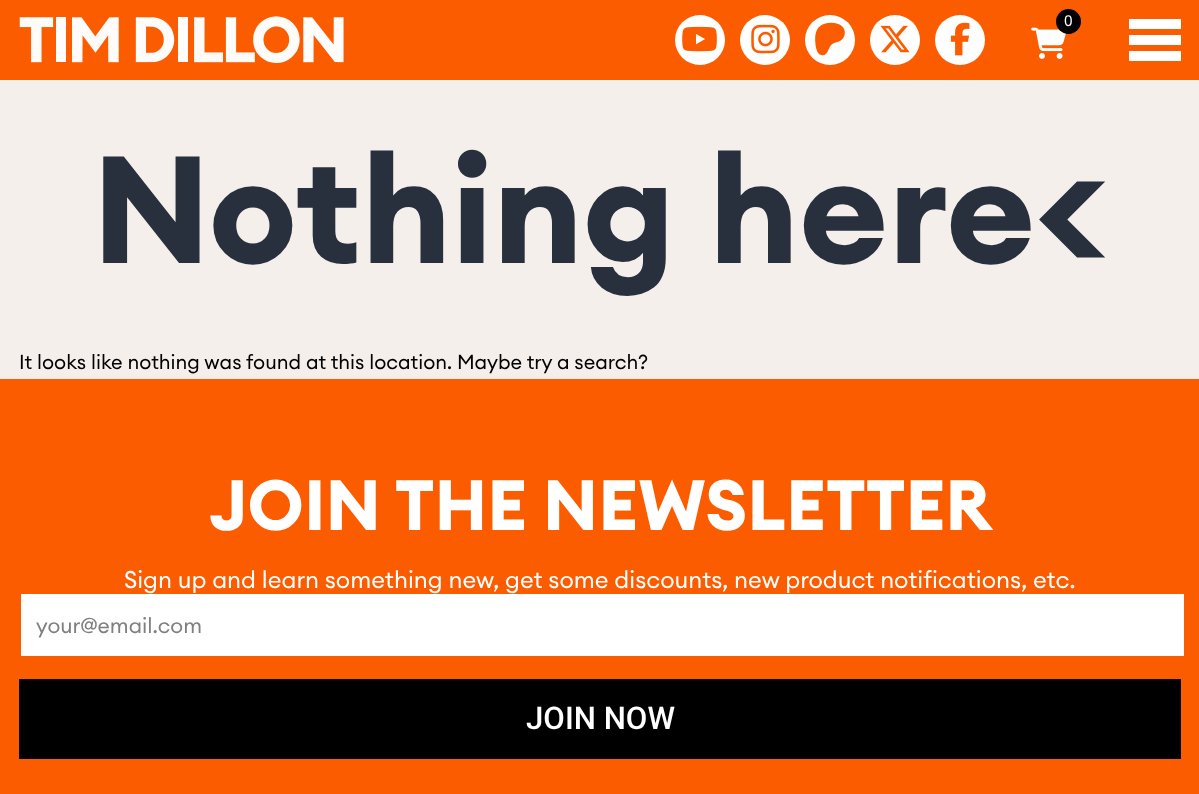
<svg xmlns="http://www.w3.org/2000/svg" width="1199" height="794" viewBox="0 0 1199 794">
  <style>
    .t1 { font: 15px Noto Sans; fill: #fff; }
    .t2 { font: bold 150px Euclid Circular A; fill: #28303d; }
    .t3 { font: 20px Euclid Circular A; fill: #010101; }
    .t4 { font: bold 70px Euclid Circular A; fill: #fff; }
    .t5 { font: 23.75px Euclid Circular A; fill: #fff; }
    .t6 { font: 21.25px Euclid Circular A; fill: #7f7f7f; }
    .t7 { font: 500 31.25px Roboto; fill: #fff; }
  </style>
  <rect width="100%" height="100%" fill="#f5efec"/>
  <rect x="0" y="0" width="1199" height="80" fill="#fc5c00"/>
  <image x="19" y="16" width="325" height="47" href="images/1.png"/>
  <circle cx="700" cy="40" r="25" fill="#fff"/>
  <image x="682" y="26" width="35" height="26" href="images/2.png"/>
  <circle cx="765" cy="40" r="25" fill="#fff"/>
  <image x="751" y="24" width="29" height="30" href="images/3.png"/>
  <circle cx="830" cy="40" r="25" fill="#fff"/>
  <image x="815" y="22" width="30" height="34" href="images/4.png"/>
  <circle cx="895" cy="40" r="25" fill="#fff"/>
  <image x="880" y="25" width="30" height="28" href="images/5.png"/>
  <circle cx="960" cy="40" r="25" fill="#fff"/>
  <image x="950" y="22" width="20" height="34" href="images/6.png"/>
  <image x="1031" y="27" width="35" height="32" href="images/7.png"/>
  <circle cx="1068.5" cy="21.5" r="12.5" fill="#000"/>
  <text x="1064" y="26" class="t1">0</text>
  <rect x="1129" y="19" width="52" height="10" fill="#fff"/>
  <rect x="1129" y="35" width="52" height="10" fill="#fff"/>
  <rect x="1129" y="51" width="52" height="10" fill="#fff"/>
  <text x="92" y="263" class="t2">Nothing here&lt;</text>
  <text x="19" y="369" class="t3">It looks like nothing was found at this location. Maybe try a search?</text>
  <rect x="0" y="379" width="1199" height="415" fill="#fc5c00"/>
  <text x="209" y="530" class="t4">JOIN THE NEWSLETTER</text>
  <text x="124" y="588" class="t5">Sign up and learn something new, get some discounts, new product notifications, etc.</text>
  <rect x="21" y="594" width="1163" height="62" fill="#fff"/>
  <text x="36" y="633" class="t6">your@email.com</text>
  <rect x="19" y="679" width="1162" height="80" fill="#000"/>
  <text x="526" y="729" class="t7">JOIN NOW</text>
</svg>
